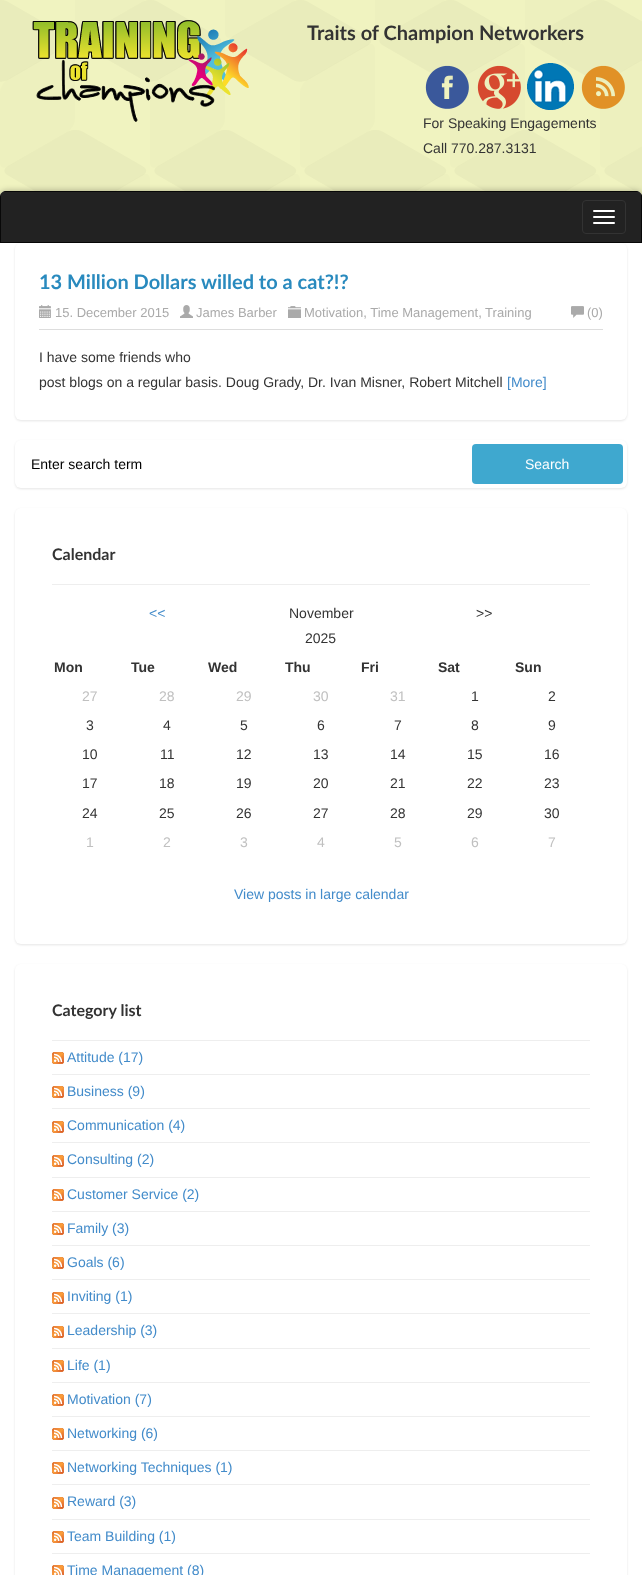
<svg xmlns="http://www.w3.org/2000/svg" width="642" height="1575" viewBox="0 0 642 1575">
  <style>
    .t1 { font: bold 20px Lato; fill: #333; }
    .t2 { font: 14px Liberation Sans; fill: #333; }
    .t3 { font: bold 20px Lato; fill: #298abe; }
    .t4 { font: 13px Liberation Sans; fill: #aaa; }
    .t5 { font: 14px Liberation Sans; fill: #428bca; }
    .t6 { font: 14px Liberation Sans; fill: #000; }
    .t7 { font: 14px Liberation Sans; fill: #fff; }
    .t8 { font: bold 16px Lato; fill: #333; }
    .t9 { font: bold 14px Liberation Sans; fill: #333; }
    .t10 { font: 14px Liberation Sans; fill: #c0c0c0; }
  </style>
  <rect width="100%" height="100%" fill="#fff"/>
  <image x="0" y="0" width="642" height="197" href="images/1.png"/>
  <image x="32" y="20" width="217" height="102" href="images/2.png"/>
  <text x="307" y="40" class="t1">Traits of Champion Networkers</text>
  <image x="425" y="65" width="44" height="44" href="images/3.png"/>
  <image x="477" y="65" width="44" height="44" href="images/4.png"/>
  <image x="527" y="63" width="47" height="47" href="images/5.png"/>
  <image x="581" y="65" width="44" height="44" href="images/6.png"/>
  <text x="423" y="128" class="t2">For Speaking Engagements</text>
  <text x="423" y="153" class="t2">Call 770.287.3131</text>
  <rect x="0" y="191" width="642" height="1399" rx="6" fill="#0000004d" filter="blur(3px)"/>
  <rect x="0" y="191" width="642" height="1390" rx="6" fill="#fff"/>
  <path d="M6 191H636C639.5 191 642 193.5 642 197V243H0V197C0 193.5 2.5 191 6 191Z" fill="#222"/>
  <path d="M0 197V243H642V197C642 196 642 195 641 194V242H1V194ZM6 191L3 192H639L636 191Z" fill="#080808" fill-rule="evenodd"/>
  <rect x="582.5" y="200.5" width="43" height="33" rx="3.5" fill="none" stroke="#333"/>
  <rect x="593" y="210" width="22" height="2" rx="1" fill="#fff"/>
  <rect x="593" y="216" width="22" height="2" rx="1" fill="#fff"/>
  <rect x="593" y="222" width="22" height="2" rx="1" fill="#fff"/>
  <rect x="15" y="244" width="612" height="177" rx="6" fill="#0000001a" filter="blur(1px)"/>
  <rect x="15" y="243" width="612" height="177" rx="6" fill="#fff"/>
  <rect x="39" y="329" width="564" height="1" fill="#ddd"/>
  <text x="39" y="289" class="t3">13 Million Dollars willed to a cat?!?</text>
  <image x="39" y="305" width="12" height="13" href="images/7.png"/>
  <text x="55" y="317" class="t4">15. December 2015</text>
  <image x="180" y="305" width="13" height="13" href="images/8.png"/>
  <text x="196" y="317" class="t4">James Barber</text>
  <image x="288" y="306" width="13" height="12" href="images/9.png"/>
  <text x="304" y="317" class="t4">Motivation, Time Management, Training</text>
  <image x="571" y="306" width="13" height="12" href="images/10.png"/>
  <text x="587" y="317" class="t4">(0)</text>
  <text x="39" y="362" class="t2">I have some friends who</text>
  <text x="39" y="387" class="t2">post blogs on a regular basis. Doug Grady, Dr. Ivan Misner, Robert Mitchell</text>
  <text x="507" y="387" class="t5">[More]</text>
  <rect x="15" y="441" width="612" height="48" rx="6" fill="#0000001a" filter="blur(1px)"/>
  <rect x="15" y="440" width="612" height="48" rx="6" fill="#fff"/>
  <text x="31" y="469" class="t6">Enter search term</text>
  <rect x="472" y="444" width="151" height="40" rx="4" fill="#3fa8cf"/>
  <text x="525" y="469" class="t7">Search</text>
  <rect x="15" y="509" width="612" height="436" rx="6" fill="#0000001a" filter="blur(1px)"/>
  <rect x="15" y="508" width="612" height="436" rx="6" fill="#fff"/>
  <rect x="52" y="584" width="538" height="1" fill="#eee"/>
  <text x="52" y="560" class="t8">Calendar</text>
  <text x="149" y="618" class="t5">&lt;&lt;</text>
  <text x="289" y="618" class="t2">November</text>
  <text x="305" y="643" class="t2">2025</text>
  <text x="476" y="618" class="t2">&gt;&gt;</text>
  <text x="54" y="672" class="t9">Mon</text>
  <text x="131" y="672" class="t9">Tue</text>
  <text x="208" y="672" class="t9">Wed</text>
  <text x="285" y="672" class="t9">Thu</text>
  <text x="361" y="672" class="t9">Fri</text>
  <text x="438" y="672" class="t9">Sat</text>
  <text x="515" y="672" class="t9">Sun</text>
  <text x="82" y="701" class="t10">27</text>
  <text x="159" y="701" class="t10">28</text>
  <text x="236" y="701" class="t10">29</text>
  <text x="313" y="701" class="t10">30</text>
  <text x="390" y="701" class="t10">31</text>
  <text x="471" y="701" class="t2">1</text>
  <text x="548" y="701" class="t2">2</text>
  <text x="86" y="730" class="t2">3</text>
  <text x="163" y="730" class="t2">4</text>
  <text x="240" y="730" class="t2">5</text>
  <text x="317" y="730" class="t2">6</text>
  <text x="394" y="730" class="t2">7</text>
  <text x="471" y="730" class="t2">8</text>
  <text x="548" y="730" class="t2">9</text>
  <text x="82" y="759" class="t2">10</text>
  <text x="160" y="759" class="t2">11</text>
  <text x="236" y="759" class="t2">12</text>
  <text x="313" y="759" class="t2">13</text>
  <text x="390" y="759" class="t2">14</text>
  <text x="467" y="759" class="t2">15</text>
  <text x="544" y="759" class="t2">16</text>
  <text x="82" y="788" class="t2">17</text>
  <text x="159" y="788" class="t2">18</text>
  <text x="236" y="788" class="t2">19</text>
  <text x="313" y="788" class="t2">20</text>
  <text x="390" y="788" class="t2">21</text>
  <text x="467" y="788" class="t2">22</text>
  <text x="544" y="788" class="t2">23</text>
  <text x="82" y="818" class="t2">24</text>
  <text x="159" y="818" class="t2">25</text>
  <text x="236" y="818" class="t2">26</text>
  <text x="313" y="818" class="t2">27</text>
  <text x="390" y="818" class="t2">28</text>
  <text x="467" y="818" class="t2">29</text>
  <text x="544" y="818" class="t2">30</text>
  <text x="86" y="847" class="t10">1</text>
  <text x="163" y="847" class="t10">2</text>
  <text x="240" y="847" class="t10">3</text>
  <text x="317" y="847" class="t10">4</text>
  <text x="394" y="847" class="t10">5</text>
  <text x="471" y="847" class="t10">6</text>
  <text x="548" y="847" class="t10">7</text>
  <text x="234" y="899" class="t5">View posts in large calendar</text>
  <rect x="15" y="965" width="612" height="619" rx="6" fill="#0000001a" filter="blur(1px)"/>
  <rect x="15" y="964" width="612" height="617" rx="6" fill="#fff"/>
  <rect x="52" y="1040" width="538" height="1" fill="#eee"/>
  <text x="52" y="1016" class="t8">Category list</text>
  <rect x="52" y="1074" width="538" height="1" fill="#eee"/>
  <image x="52" y="1052" width="12" height="12" href="images/11.png"/>
  <text x="67" y="1062" class="t5">Attitude (17)</text>
  <rect x="52" y="1108" width="538" height="1" fill="#eee"/>
  <image x="52" y="1086" width="12" height="12" href="images/11.png"/>
  <text x="67" y="1096" class="t5">Business (9)</text>
  <rect x="52" y="1142" width="538" height="1" fill="#eee"/>
  <image x="52" y="1121" width="12" height="12" href="images/11.png"/>
  <text x="67" y="1130" class="t5">Communication (4)</text>
  <rect x="52" y="1177" width="538" height="1" fill="#eee"/>
  <image x="52" y="1155" width="12" height="12" href="images/11.png"/>
  <text x="67" y="1164" class="t5">Consulting (2)</text>
  <rect x="52" y="1211" width="538" height="1" fill="#eee"/>
  <image x="52" y="1189" width="12" height="12" href="images/11.png"/>
  <text x="67" y="1199" class="t5">Customer Service (2)</text>
  <rect x="52" y="1245" width="538" height="1" fill="#eee"/>
  <image x="52" y="1223" width="12" height="12" href="images/11.png"/>
  <text x="67" y="1233" class="t5">Family (3)</text>
  <rect x="52" y="1279" width="538" height="1" fill="#eee"/>
  <image x="52" y="1257" width="12" height="12" href="images/11.png"/>
  <text x="67" y="1267" class="t5">Goals (6)</text>
  <rect x="52" y="1313" width="538" height="1" fill="#eee"/>
  <image x="52" y="1292" width="12" height="12" href="images/11.png"/>
  <text x="67" y="1301" class="t5">Inviting (1)</text>
  <rect x="52" y="1348" width="538" height="1" fill="#eee"/>
  <image x="52" y="1326" width="12" height="12" href="images/11.png"/>
  <text x="67" y="1335" class="t5">Leadership (3)</text>
  <rect x="52" y="1382" width="538" height="1" fill="#eee"/>
  <image x="52" y="1360" width="12" height="12" href="images/11.png"/>
  <text x="67" y="1370" class="t5">Life (1)</text>
  <rect x="52" y="1416" width="538" height="1" fill="#eee"/>
  <image x="52" y="1394" width="12" height="12" href="images/11.png"/>
  <text x="67" y="1404" class="t5">Motivation (7)</text>
  <rect x="52" y="1450" width="538" height="1" fill="#eee"/>
  <image x="52" y="1428" width="12" height="12" href="images/11.png"/>
  <text x="67" y="1438" class="t5">Networking (6)</text>
  <rect x="52" y="1484" width="538" height="1" fill="#eee"/>
  <image x="52" y="1462" width="12" height="12" href="images/11.png"/>
  <text x="67" y="1472" class="t5">Networking Techniques (1)</text>
  <rect x="52" y="1519" width="538" height="1" fill="#eee"/>
  <image x="52" y="1497" width="12" height="12" href="images/11.png"/>
  <text x="67" y="1506" class="t5">Reward (3)</text>
  <rect x="52" y="1553" width="538" height="1" fill="#eee"/>
  <image x="52" y="1531" width="12" height="12" href="images/11.png"/>
  <text x="67" y="1541" class="t5">Team Building (1)</text>
  <image x="52" y="1565" width="12" height="10" href="images/12.png"/>
  <text x="67" y="1575" class="t5">Time Management (8)</text>
</svg>
